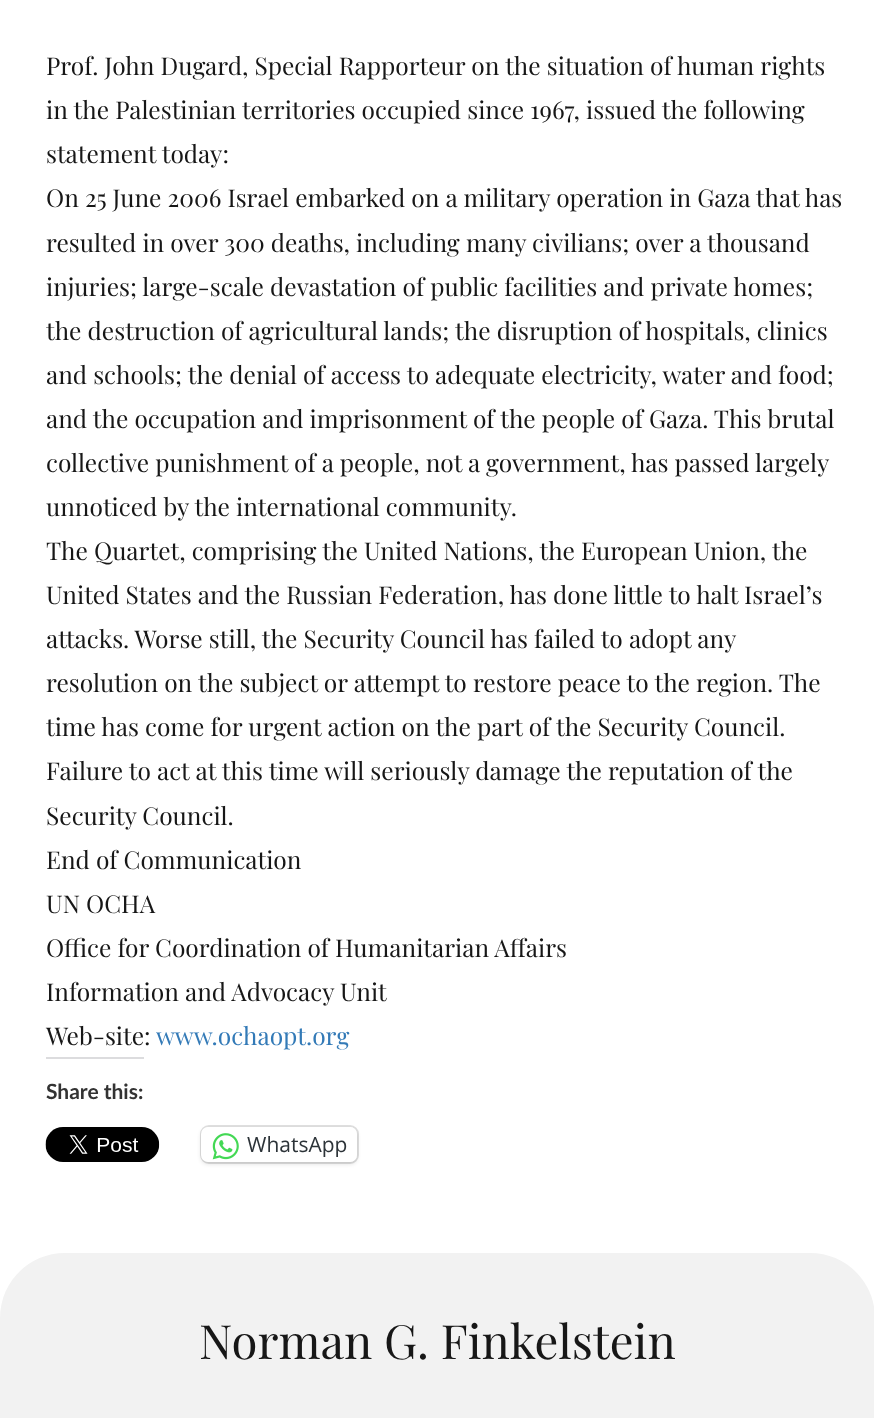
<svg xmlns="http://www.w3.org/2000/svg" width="874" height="1418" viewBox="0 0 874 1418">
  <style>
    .t1 { font: 24.5px Playfair Display; fill: #171717; }
    .t2 { font: 24.5px Playfair Display; fill: #337ab7; }
    .t3 { font: bold 21px Lato; fill: #333; }
    .t4 { font: 21px Open Sans; fill: #2c3338; }
    .t5 { font: 47.25px Playfair Display; fill: #171717; }
  </style>
  <rect width="100%" height="100%" fill="#fff"/>
  <text x="46" y="75" class="t1">Prof. John Dugard, Special Rapporteur on the situation of human rights</text>
  <text x="46" y="119" class="t1">in the Palestinian territories occupied since 1967, issued the following</text>
  <text x="46" y="163" class="t1">statement today:</text>
  <text x="46" y="207" class="t1">On 25 June 2006 Israel embarked on a military operation in Gaza that has</text>
  <text x="46" y="252" class="t1">resulted in over 300 deaths, including many civilians; over a thousand</text>
  <text x="46" y="296" class="t1">injuries; large-scale devastation of public facilities and private homes;</text>
  <text x="46" y="340" class="t1">the destruction of agricultural lands; the disruption of hospitals, clinics</text>
  <text x="46" y="384" class="t1">and schools; the denial of access to adequate electricity, water and food;</text>
  <text x="46" y="428" class="t1">and the occupation and imprisonment of the people of Gaza. This brutal</text>
  <text x="46" y="472" class="t1">collective punishment of a people, not a government, has passed largely</text>
  <text x="46" y="516" class="t1">unnoticed by the international community.</text>
  <text x="46" y="560" class="t1">The Quartet, comprising the United Nations, the European Union, the</text>
  <text x="46" y="604" class="t1">United States and the Russian Federation, has done little to halt Israel’s</text>
  <text x="46" y="648" class="t1">attacks. Worse still, the Security Council has failed to adopt any</text>
  <text x="46" y="692" class="t1">resolution on the subject or attempt to restore peace to the region. The</text>
  <text x="46" y="736" class="t1">time has come for urgent action on the part of the Security Council.</text>
  <text x="46" y="780" class="t1">Failure to act at this time will seriously damage the reputation of the</text>
  <text x="46" y="825" class="t1">Security Council.</text>
  <text x="46" y="869" class="t1">End of Communication</text>
  <text x="46" y="913" class="t1">UN OCHA</text>
  <text x="46" y="957" class="t1">Office for Coordination of Humanitarian Affairs</text>
  <text x="46" y="1001" class="t1">Information and Advocacy Unit</text>
  <text x="46" y="1045" class="t1">Web-site:</text>
  <text x="156" y="1045" class="t2">www.ochaopt.org</text>
  <rect x="46" y="1057" width="98" height="2" fill="#dcdcde"/>
  <text x="46" y="1099" class="t3">Share this:</text>
  <image x="45" y="1127" width="115" height="35" href="images/1.png"/>
  <rect x="201" y="1126" width="157" height="37" rx="8" fill="none" stroke="#e0e0e0" stroke-width="2"/>
  <rect x="201" y="1129" width="156" height="35" rx="7" fill="#0000001f" filter="blur(2px)"/>
  <rect x="201" y="1127" width="156" height="35" rx="7" fill="#fff"/>
  <image x="212" y="1133" width="27" height="27" href="images/2.png"/>
  <text x="247" y="1152" class="t4">WhatsApp</text>
  <path d="M65 1253H810C846 1253 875 1282 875 1318V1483H0V1318C0 1282 29 1253 65 1253Z" fill="#f2f2f2"/>
  <text x="199" y="1359" class="t5">Norman G. Finkelstein</text>
</svg>
